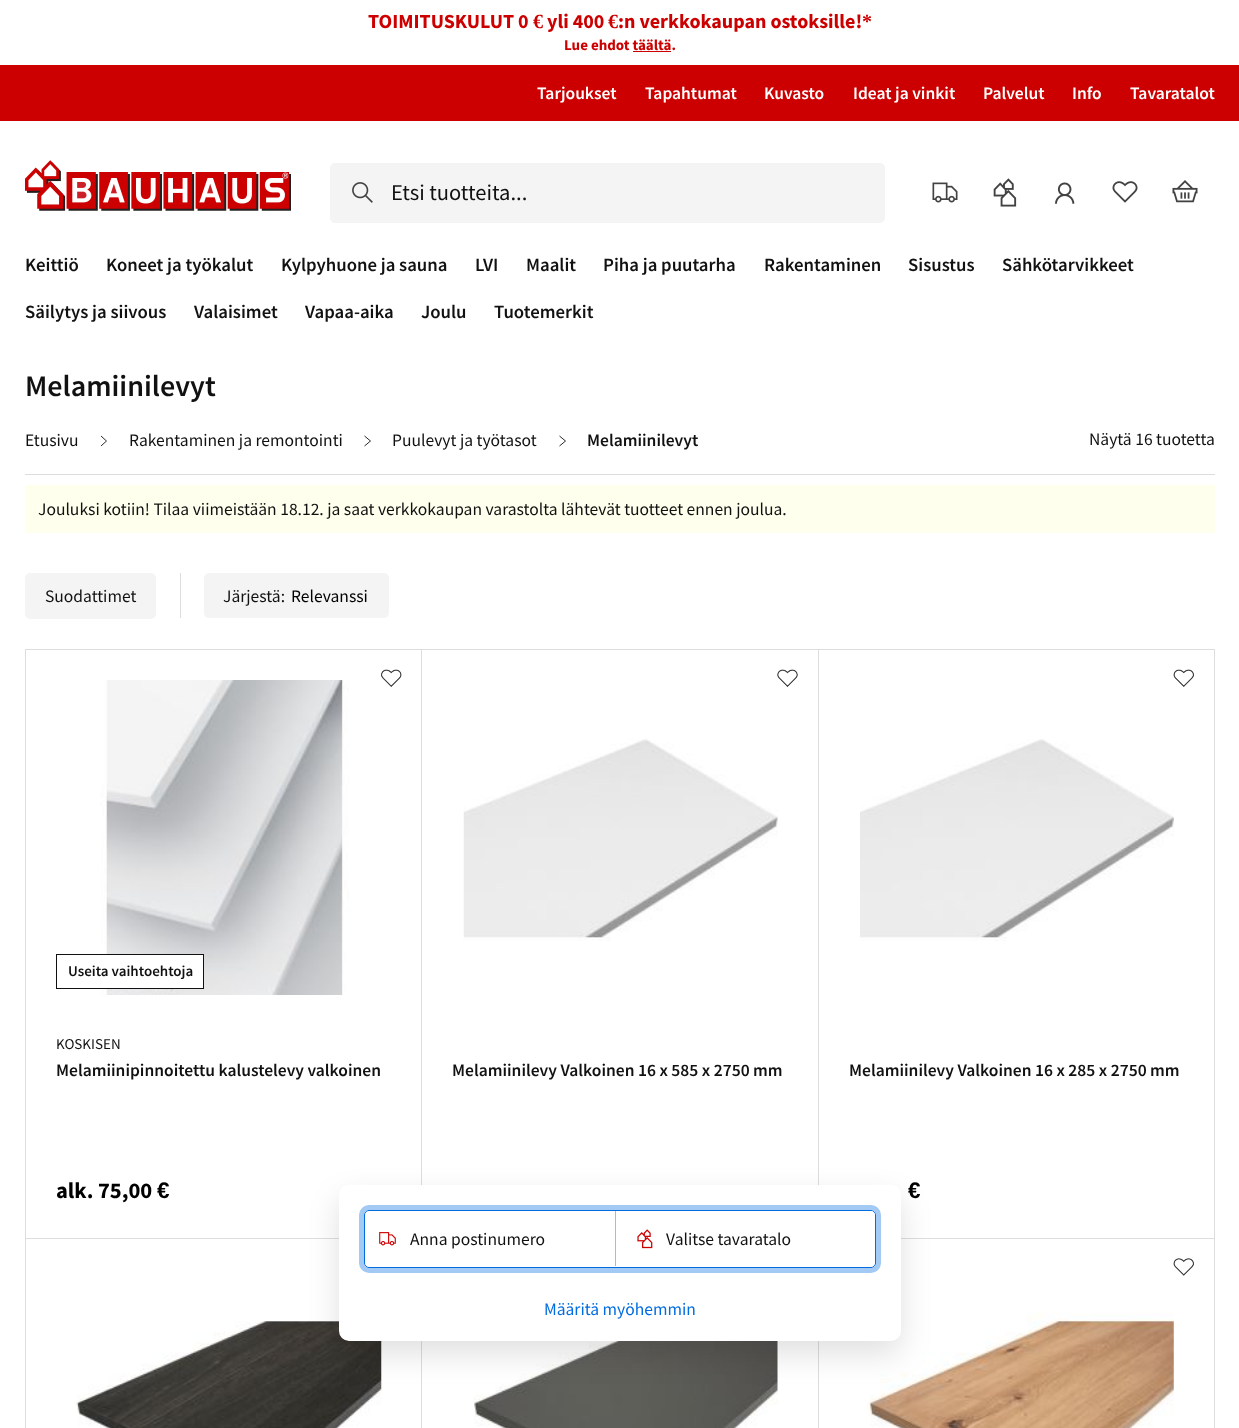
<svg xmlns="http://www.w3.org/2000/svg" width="1239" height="1428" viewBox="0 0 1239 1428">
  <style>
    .t1 { font: bold 20px Source Sans Pro; fill: #c00; }
    .t2 { font: bold 20px Liberation Serif; fill: #c00; }
    .t3 { font: bold 15px Source Sans Pro; fill: #c00; }
    .t4 { font: 600 17.5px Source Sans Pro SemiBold; fill: #fff; }
    .t5 { font: 22.5px Source Sans Pro; fill: #111; }
    .t6 { font: 600 18.75px Source Sans Pro SemiBold; fill: #111; }
    .t7 { font: 600 30px Source Sans Pro SemiBold; fill: #111; }
    .t8 { font: 17.5px Source Sans Pro; fill: #111; }
    .t9 { font: 600 17.5px Source Sans Pro SemiBold; fill: #111; }
    .t10 { font: 17.5px Source Sans Pro; fill: #000; }
    .t11 { font: 600 15px Source Sans Pro SemiBold; fill: #111; }
    .t12 { font: 15px Source Sans Pro; fill: #111; }
    .t13 { font: bold 22.5px Source Sans Pro; fill: #000; }
    .t14 { font: bold 22.5px Liberation Sans; fill: #000; }
    .t15 { font: 17.5px Source Sans Pro; fill: #006ce0; }
  </style>
  <rect width="100%" height="100%" fill="#fff"/>
  <text x="368" y="28" class="t1">TOIMITUSKULUT 0</text>
  <text x="533" y="28" class="t2">€</text>
  <text x="547" y="28" class="t1">yli 400</text>
  <text x="608" y="28" class="t2">€</text>
  <text x="618" y="28" class="t1">:n verkkokaupan ostoksille!</text>
  <text x="862" y="28" class="t2">*</text>
  <text x="564" y="50" class="t3">Lue ehdot täältä.</text>
  <rect x="633" y="51" width="38" height="1" fill="#c00"/>
  <rect x="0" y="65" width="1239" height="56" fill="#c00"/>
  <text x="537" y="99" class="t4">Tarjoukset</text>
  <text x="645" y="99" class="t4">Tapahtumat</text>
  <text x="764" y="99" class="t4">Kuvasto</text>
  <text x="853" y="99" class="t4">Ideat ja vinkit</text>
  <text x="983" y="99" class="t4">Palvelut</text>
  <text x="1072" y="99" class="t4">Info</text>
  <text x="1130" y="99" class="t4">Tavaratalot</text>
  <image x="25" y="160" width="266" height="51" href="images/1.png"/>
  <rect x="330.5" y="163.5" width="554" height="59" rx="4.5" fill="#f4f4f4" stroke="#f4f4f4"/>
  <image x="352" y="182" width="21" height="21" href="images/2.png"/>
  <text x="391" y="200" class="t5">Etsi tuotteita...</text>
  <image x="932" y="182" width="26" height="21" href="images/3.png"/>
  <image x="993" y="178" width="24" height="29" href="images/4.png"/>
  <image x="1055" y="182" width="20" height="22" href="images/5.png"/>
  <image x="1112" y="181" width="26" height="22" href="images/6.png"/>
  <image x="1172" y="180" width="26" height="23" href="images/7.png"/>
  <text x="25" y="271" class="t6">Keittiö</text>
  <text x="106" y="271" class="t6">Koneet ja työkalut</text>
  <text x="281" y="271" class="t6">Kylpyhuone ja sauna</text>
  <text x="475" y="271" class="t6">LVI</text>
  <text x="526" y="271" class="t6">Maalit</text>
  <text x="603" y="271" class="t6">Piha ja puutarha</text>
  <text x="764" y="271" class="t6">Rakentaminen</text>
  <text x="908" y="271" class="t6">Sisustus</text>
  <text x="1002" y="271" class="t6">Sähkötarvikkeet</text>
  <text x="25" y="318" class="t6">Säilytys ja siivous</text>
  <text x="194" y="318" class="t6">Valaisimet</text>
  <text x="305" y="318" class="t6">Vapaa-aika</text>
  <text x="421" y="318" class="t6">Joulu</text>
  <text x="494" y="318" class="t6">Tuotemerkit</text>
  <rect x="25" y="474" width="1190" height="1" fill="#ddd"/>
  <text x="25" y="396" class="t7">Melamiinilevyt</text>
  <text x="25" y="446" class="t8">Etusivu</text>
  <path d="M101 446L106.5 441L101 436" fill="none" stroke="#111" stroke-width="0.9"/>
  <text x="129" y="446" class="t8">Rakentaminen ja remontointi</text>
  <path d="M364.5 446L370.5 441L364.5 436" fill="none" stroke="#111" stroke-width="0.9"/>
  <text x="392" y="446" class="t8">Puulevyt ja työtasot</text>
  <path d="M559.5 446L565.5 441L559.5 436" fill="none" stroke="#111" stroke-width="0.9"/>
  <text x="587" y="446" class="t9">Melamiinilevyt</text>
  <text x="1089" y="445" class="t8">Näytä 16 tuotetta</text>
  <rect x="25" y="485" width="1190" height="48" fill="#ffffed"/>
  <text x="38" y="515" class="t8">Jouluksi kotiin! Tilaa viimeistään 18.12. ja saat verkkokaupan varastolta lähtevät tuotteet ennen joulua.</text>
  <rect x="25" y="573" width="131" height="46" rx="5" fill="#f4f4f4"/>
  <text x="45" y="602" class="t8">Suodattimet</text>
  <rect x="180" y="573" width="1" height="45" fill="#ddd"/>
  <rect x="204" y="573" width="185" height="45" rx="5" fill="#f4f4f4"/>
  <text x="223" y="602" class="t8">Järjestä:</text>
  <text x="291" y="602" class="t10">Relevanssi</text>
  <rect x="25" y="649" width="1" height="779" fill="#ddd"/>
  <rect x="26" y="649" width="1189" height="1" fill="#ddd"/>
  <rect x="26" y="1238" width="313" height="1" fill="#ddd"/>
  <image x="381" y="669" width="21" height="18" href="images/8.png"/>
  <image x="100" y="680" width="249" height="315" href="images/9.png"/>
  <rect x="103" y="955" width="100" height="33" fill="#fff"/>
  <rect x="56.5" y="954.5" width="147" height="34" fill="none" stroke="#111"/>
  <text x="68" y="976" class="t11">Useita vaihtoehtoja</text>
  <text x="56" y="1049" class="t12">KOSKISEN</text>
  <text x="56" y="1076" class="t9">Melamiinipinnoitettu kalustelevy valkoinen</text>
  <text x="56" y="1198" class="t13">alk. 75,00</text>
  <text x="157" y="1198" class="t14">€</text>
  <rect x="421" y="650" width="1" height="535" fill="#ddd"/>
  <image x="777" y="669" width="21" height="18" href="images/10.png"/>
  <image x="463" y="739" width="315" height="202" href="images/11.png"/>
  <text x="452" y="1076" class="t9">Melamiinilevy Valkoinen 16 x 585 x 2750 mm</text>
  <rect x="818" y="650" width="1" height="535" fill="#ddd"/>
  <rect x="901" y="1238" width="314" height="1" fill="#ddd"/>
  <image x="1173" y="669" width="21" height="18" href="images/12.png"/>
  <image x="860" y="739" width="314" height="202" href="images/13.png"/>
  <text x="849" y="1076" class="t9">Melamiinilevy Valkoinen 16 x 285 x 2750 mm</text>
  <text x="908" y="1198" class="t14">€</text>
  <rect x="1214" y="650" width="1" height="588" fill="#ddd"/>
  <image x="75" y="1321" width="307" height="107" href="images/14.png"/>
  <rect x="421" y="1341" width="1" height="87" fill="#ddd"/>
  <image x="474" y="1341" width="304" height="87" href="images/15.png"/>
  <rect x="818" y="1341" width="1" height="87" fill="#ddd"/>
  <image x="1173" y="1258" width="21" height="18" href="images/16.png"/>
  <image x="867" y="1311" width="307" height="117" href="images/17.png"/>
  <rect x="1214" y="1239" width="1" height="189" fill="#ddd"/>
  <rect x="339" y="1198" width="562" height="156" rx="10" fill="#0000001f" filter="blur(15.5px)"/>
  <rect x="339" y="1185" width="562" height="156" rx="10" fill="#fff"/>
  <rect x="361.5" y="1207.5" width="517" height="63" rx="7.5" fill="none" stroke="#a3caf4" stroke-width="5"/>
  <rect x="364.5" y="1210.5" width="511" height="57" rx="4.5" fill="none" stroke="#006ce0"/>
  <rect x="615" y="1211" width="1" height="55" fill="#b8b8b8"/>
  <image x="379" y="1232" width="17" height="14" href="images/18.png"/>
  <text x="410" y="1245" class="t8">Anna postinumero</text>
  <path d="M624 1211H870C873 1211 875 1213 875 1216V1261C875 1264 873 1266 870 1266H624Z" fill="#fff"/>
  <image x="637" y="1229" width="16" height="20" href="images/19.png"/>
  <text x="666" y="1245" class="t8">Valitse tavaratalo</text>
  <text x="544" y="1315" class="t15">Määritä myöhemmin</text>
</svg>
